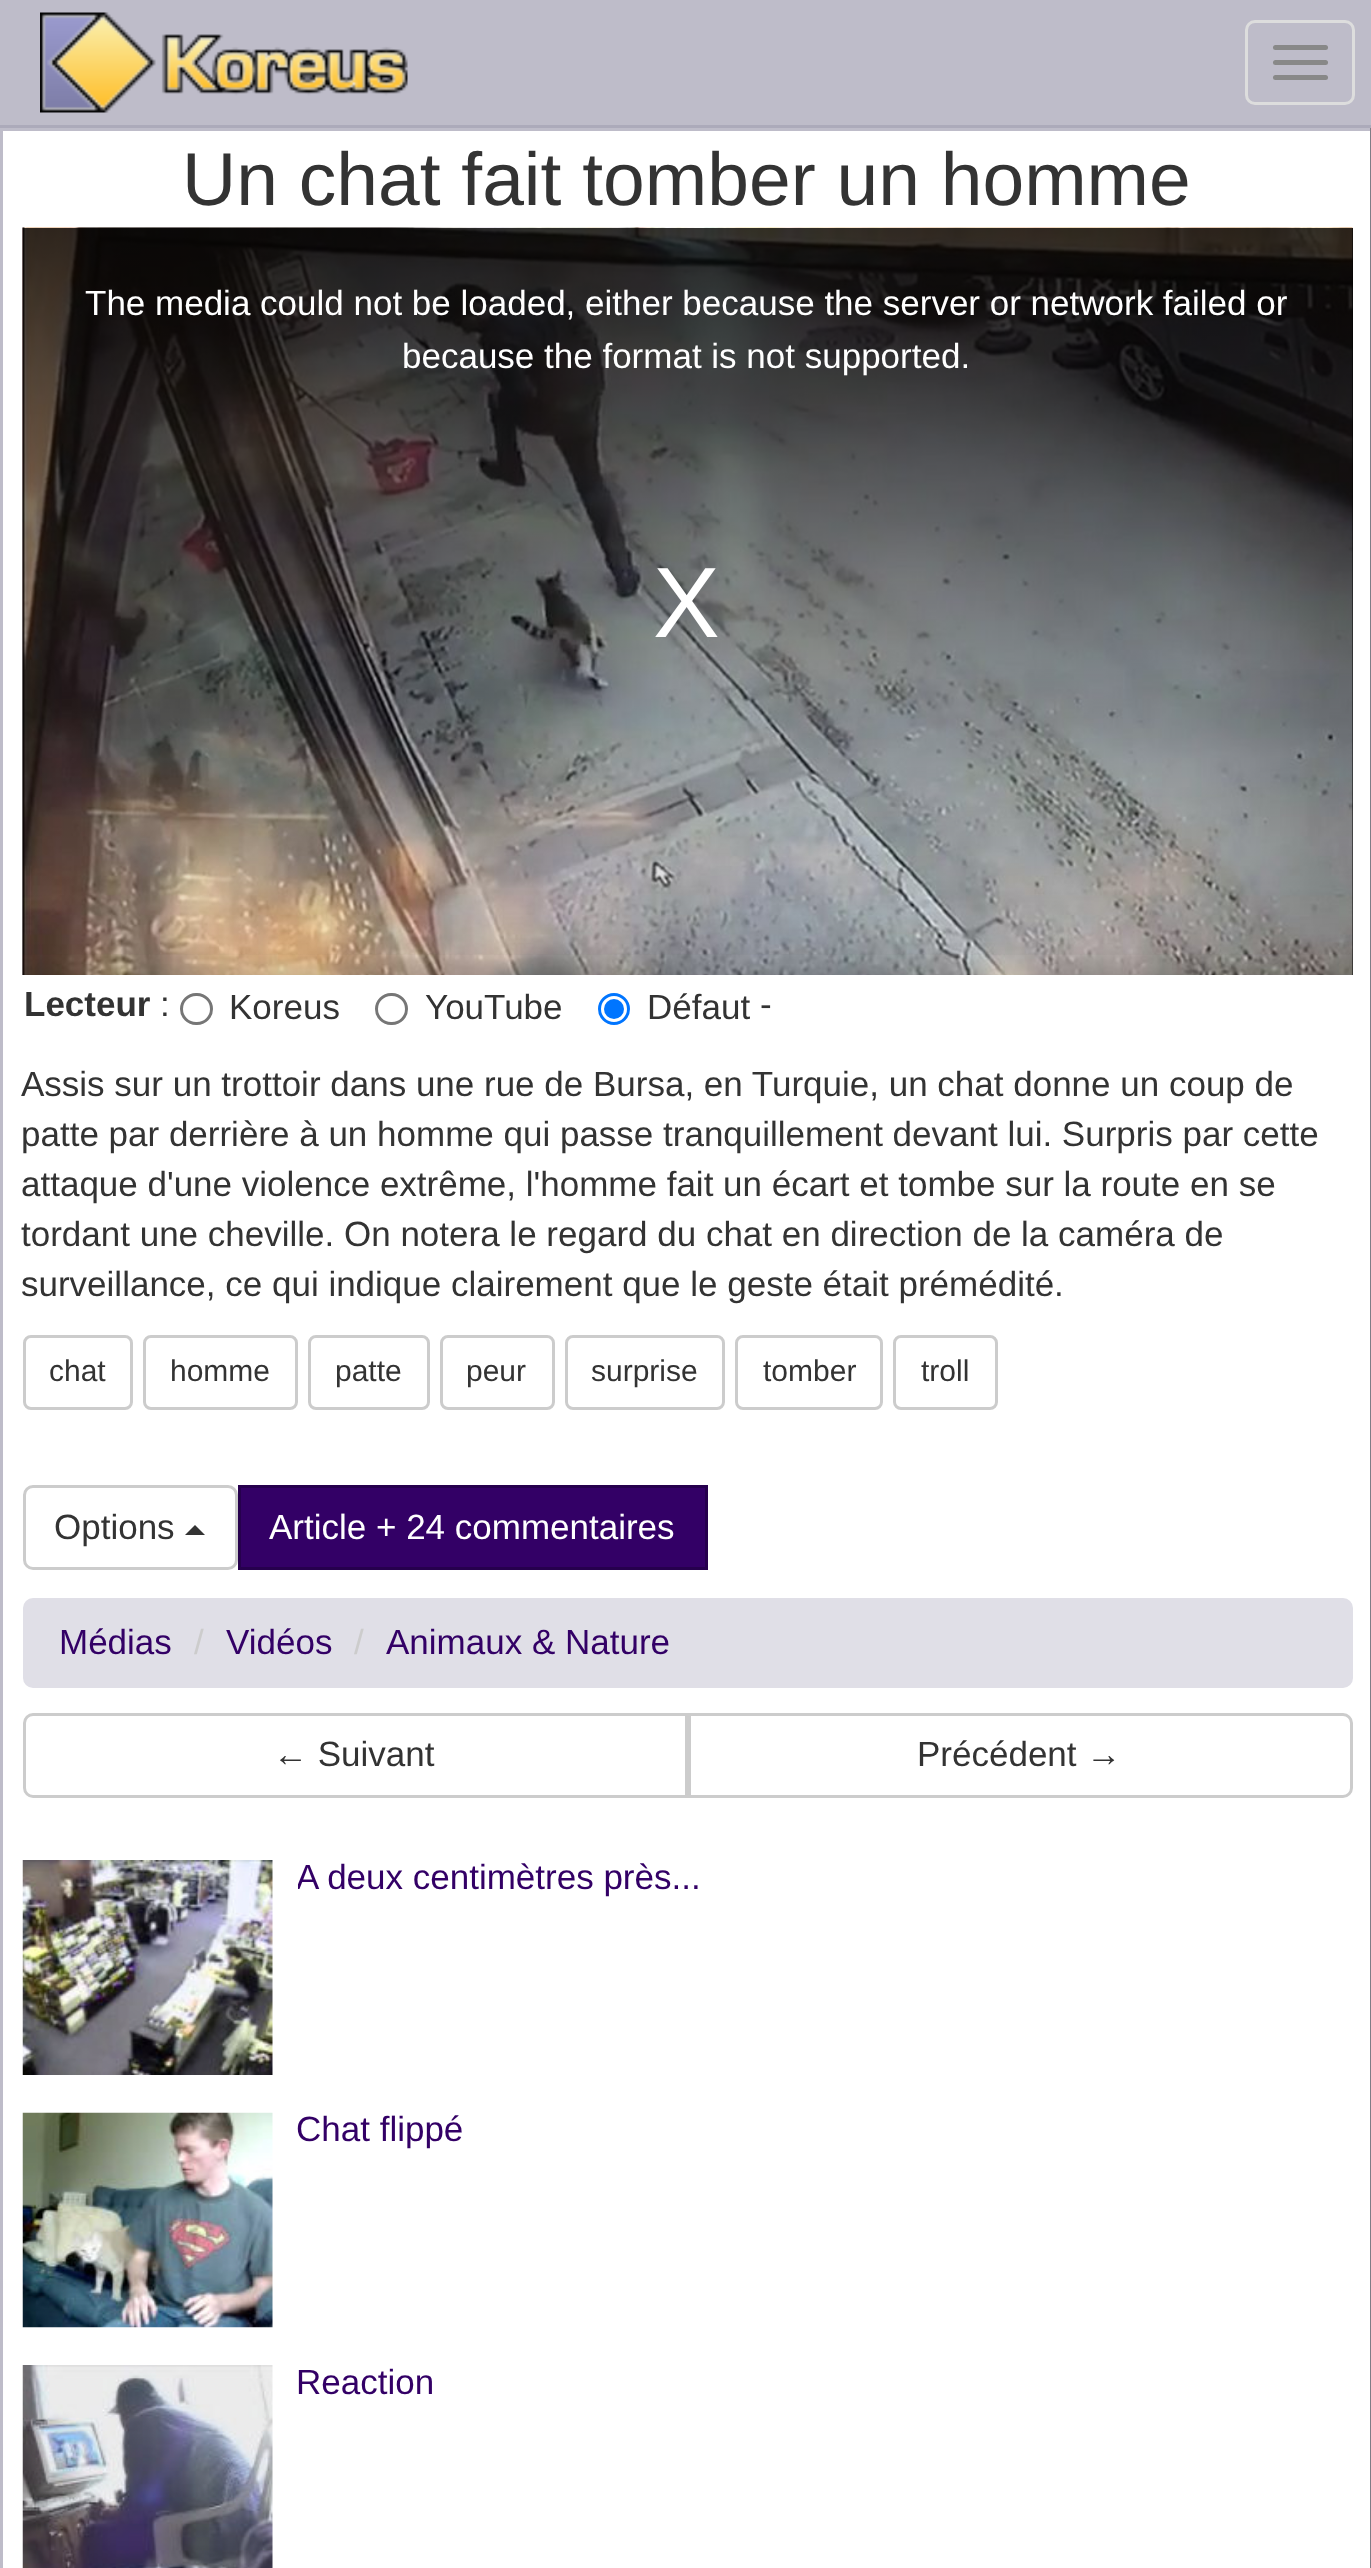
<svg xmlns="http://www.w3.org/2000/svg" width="1371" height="2568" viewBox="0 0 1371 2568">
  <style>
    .t1 { font: 75px Liberation Sans; fill: #333; }
    .t2 { font: 35px Liberation Sans; fill: #fff; }
    .t3 { font: 100px Liberation Sans; fill: #fff; }
    .t4 { font: bold 35px Liberation Sans; fill: #333; }
    .t5 { font: 35px Liberation Sans; fill: #333; }
    .t6 { font: 30px Liberation Sans; fill: #333; }
    .t7 { font: 35px Liberation Sans; fill: #306; }
    .t8 { font: 35px Liberation Sans; fill: #ccc; }
  </style>
  <defs>
    <linearGradient id="g1" gradientUnits="userSpaceOnUse" x1="688" y1="227" x2="688" y2="975"><stop offset="0" stop-color="#000" stop-opacity="0.8"/><stop offset="1" stop-color="#000" stop-opacity="0"/></linearGradient>
    <clipPath id="clip1"><rect x="298" y="1860" width="1055" height="50"/></clipPath>
  </defs>
  <rect width="100%" height="100%" fill="#fff"/>
  <rect x="0" y="0" width="1371" height="125" fill="#bebcc9"/>
  <rect x="0" y="125" width="1371" height="3" fill="#acaaba"/>
  <image x="40" y="12" width="368" height="101" href="images/1.png"/>
  <rect x="1246.5" y="21.5" width="107" height="82" rx="8.5" fill="none" stroke="#ddd" stroke-width="3"/>
  <rect x="1273" y="45" width="55" height="5" rx="2.5" fill="#888"/>
  <rect x="1273" y="60" width="55" height="5" rx="2.5" fill="#888"/>
  <rect x="1273" y="75" width="55" height="5" rx="2.5" fill="#888"/>
  <rect x="0" y="128" width="1371" height="3" fill="#bebcc9"/>
  <rect x="1370" y="128" width="1" height="2440" fill="#7f7d86"/>
  <rect x="0" y="128" width="3" height="2440" fill="#bebcc9"/>
  <text x="182" y="205" class="t1">Un chat fait tomber un homme</text>
  <image x="22" y="227" width="1331" height="748" href="images/2.png"/>
  <rect x="1352" y="228" width="1" height="747" fill="#000"/>
  <image x="22" y="227" width="1331" height="748" href="images/3.png"/>
  <rect x="23" y="228" width="1330" height="727" fill="url(#g1)"/>
  <text x="85" y="315" class="t2">The media could not be loaded, either because the server or network failed or</text>
  <text x="402" y="368" class="t2">because the format is not supported.</text>
  <text x="653" y="637" class="t3">X</text>
  <text x="24" y="1016" class="t4">Lecteur</text>
  <text x="160" y="1016" class="t5">:</text>
  <rect x="181.5" y="994.5" width="30" height="29" rx="14.5" fill="none" stroke="#767676" stroke-width="3"/>
  <text x="229" y="1019" class="t5">Koreus</text>
  <rect x="376.5" y="994.5" width="30" height="29" rx="14.5" fill="none" stroke="#767676" stroke-width="3"/>
  <text x="425" y="1019" class="t5">YouTube</text>
  <circle cx="614" cy="1009" r="14.5" fill="none" stroke="#0075ff" stroke-width="3"/>
  <circle cx="614" cy="1009" r="10" fill="#0075ff"/>
  <text x="647" y="1019" class="t5">Défaut</text>
  <text x="760" y="1016" class="t5">-</text>
  <text x="21" y="1096" class="t5">Assis sur un trottoir dans une rue de Bursa, en Turquie, un chat donne un coup de</text>
  <text x="21" y="1146" class="t5">patte par derrière à un homme qui passe tranquillement devant lui. Surpris par cette</text>
  <text x="21" y="1196" class="t5">attaque d'une violence extrême, l'homme fait un écart et tombe sur la route en se</text>
  <text x="21" y="1246" class="t5">tordant une cheville. On notera le regard du chat en direction de la caméra de</text>
  <text x="21" y="1296" class="t5">surveillance, ce qui indique clairement que le geste était prémédité.</text>
  <rect x="24.5" y="1336.5" width="107" height="72" rx="6.5" fill="none" stroke="#ccc" stroke-width="3"/>
  <text x="49" y="1381" class="t6">chat</text>
  <rect x="144.5" y="1336.5" width="152" height="72" rx="6.5" fill="none" stroke="#ccc" stroke-width="3"/>
  <text x="170" y="1381" class="t6">homme</text>
  <rect x="309.5" y="1336.5" width="119" height="72" rx="6.5" fill="none" stroke="#ccc" stroke-width="3"/>
  <text x="335" y="1381" class="t6">patte</text>
  <rect x="441.5" y="1336.5" width="112" height="72" rx="6.5" fill="none" stroke="#ccc" stroke-width="3"/>
  <text x="466" y="1381" class="t6">peur</text>
  <rect x="566.5" y="1336.5" width="157" height="72" rx="6.5" fill="none" stroke="#ccc" stroke-width="3"/>
  <text x="591" y="1381" class="t6">surprise</text>
  <rect x="736.5" y="1336.5" width="145" height="72" rx="6.5" fill="none" stroke="#ccc" stroke-width="3"/>
  <text x="763" y="1381" class="t6">tomber</text>
  <rect x="894.5" y="1336.5" width="102" height="72" rx="6.5" fill="none" stroke="#ccc" stroke-width="3"/>
  <text x="921" y="1381" class="t6">troll</text>
  <rect x="24.5" y="1486.5" width="212" height="82" rx="8.5" fill="none" stroke="#ccc" stroke-width="3"/>
  <text x="54" y="1539" class="t5">Options</text>
  <path d="M205 1535H185L195 1525Z" fill="#333"/>
  <rect x="239.5" y="1486.5" width="467" height="82" fill="#306" stroke="#26004d" stroke-width="3"/>
  <text x="269" y="1539" class="t2">Article + 24 commentaires</text>
  <rect x="23" y="1598" width="1330" height="90" rx="10" fill="#e0dfe7"/>
  <text x="59" y="1654" class="t7">Médias</text>
  <text x="194" y="1654" class="t8">/</text>
  <text x="226" y="1654" class="t7">Vidéos</text>
  <text x="354" y="1654" class="t8">/</text>
  <text x="386" y="1654" class="t7">Animaux &amp; Nature</text>
  <path d="M33 1714.5H686.5V1796.5H33C28.5 1796.5 24.5 1792.5 24.5 1788V1723C24.5 1718.5 28.5 1714.5 33 1714.5Z" fill="none" stroke="#ccc" stroke-width="3"/>
  <text x="273" y="1766" class="t5">← Suivant</text>
  <path d="M689.5 1714.5H1343C1347.5 1714.5 1351.5 1718.5 1351.5 1723V1788C1351.5 1792.5 1347.5 1796.5 1343 1796.5H689.5Z" fill="none" stroke="#ccc" stroke-width="3"/>
  <text x="917" y="1766" class="t5">Précédent →</text>
  <image x="22" y="1860" width="251" height="215" href="images/4.png"/>
  <g clip-path="url(#clip1)">
    <text x="296" y="1889" class="t7">A deux centimètres près...</text>
  </g>
  <image x="22" y="2112" width="251" height="216" href="images/5.png"/>
  <text x="296" y="2141" class="t7">Chat flippé</text>
  <image x="22" y="2365" width="251" height="203" href="images/6.png"/>
  <text x="296" y="2394" class="t7">Reaction</text>
</svg>
